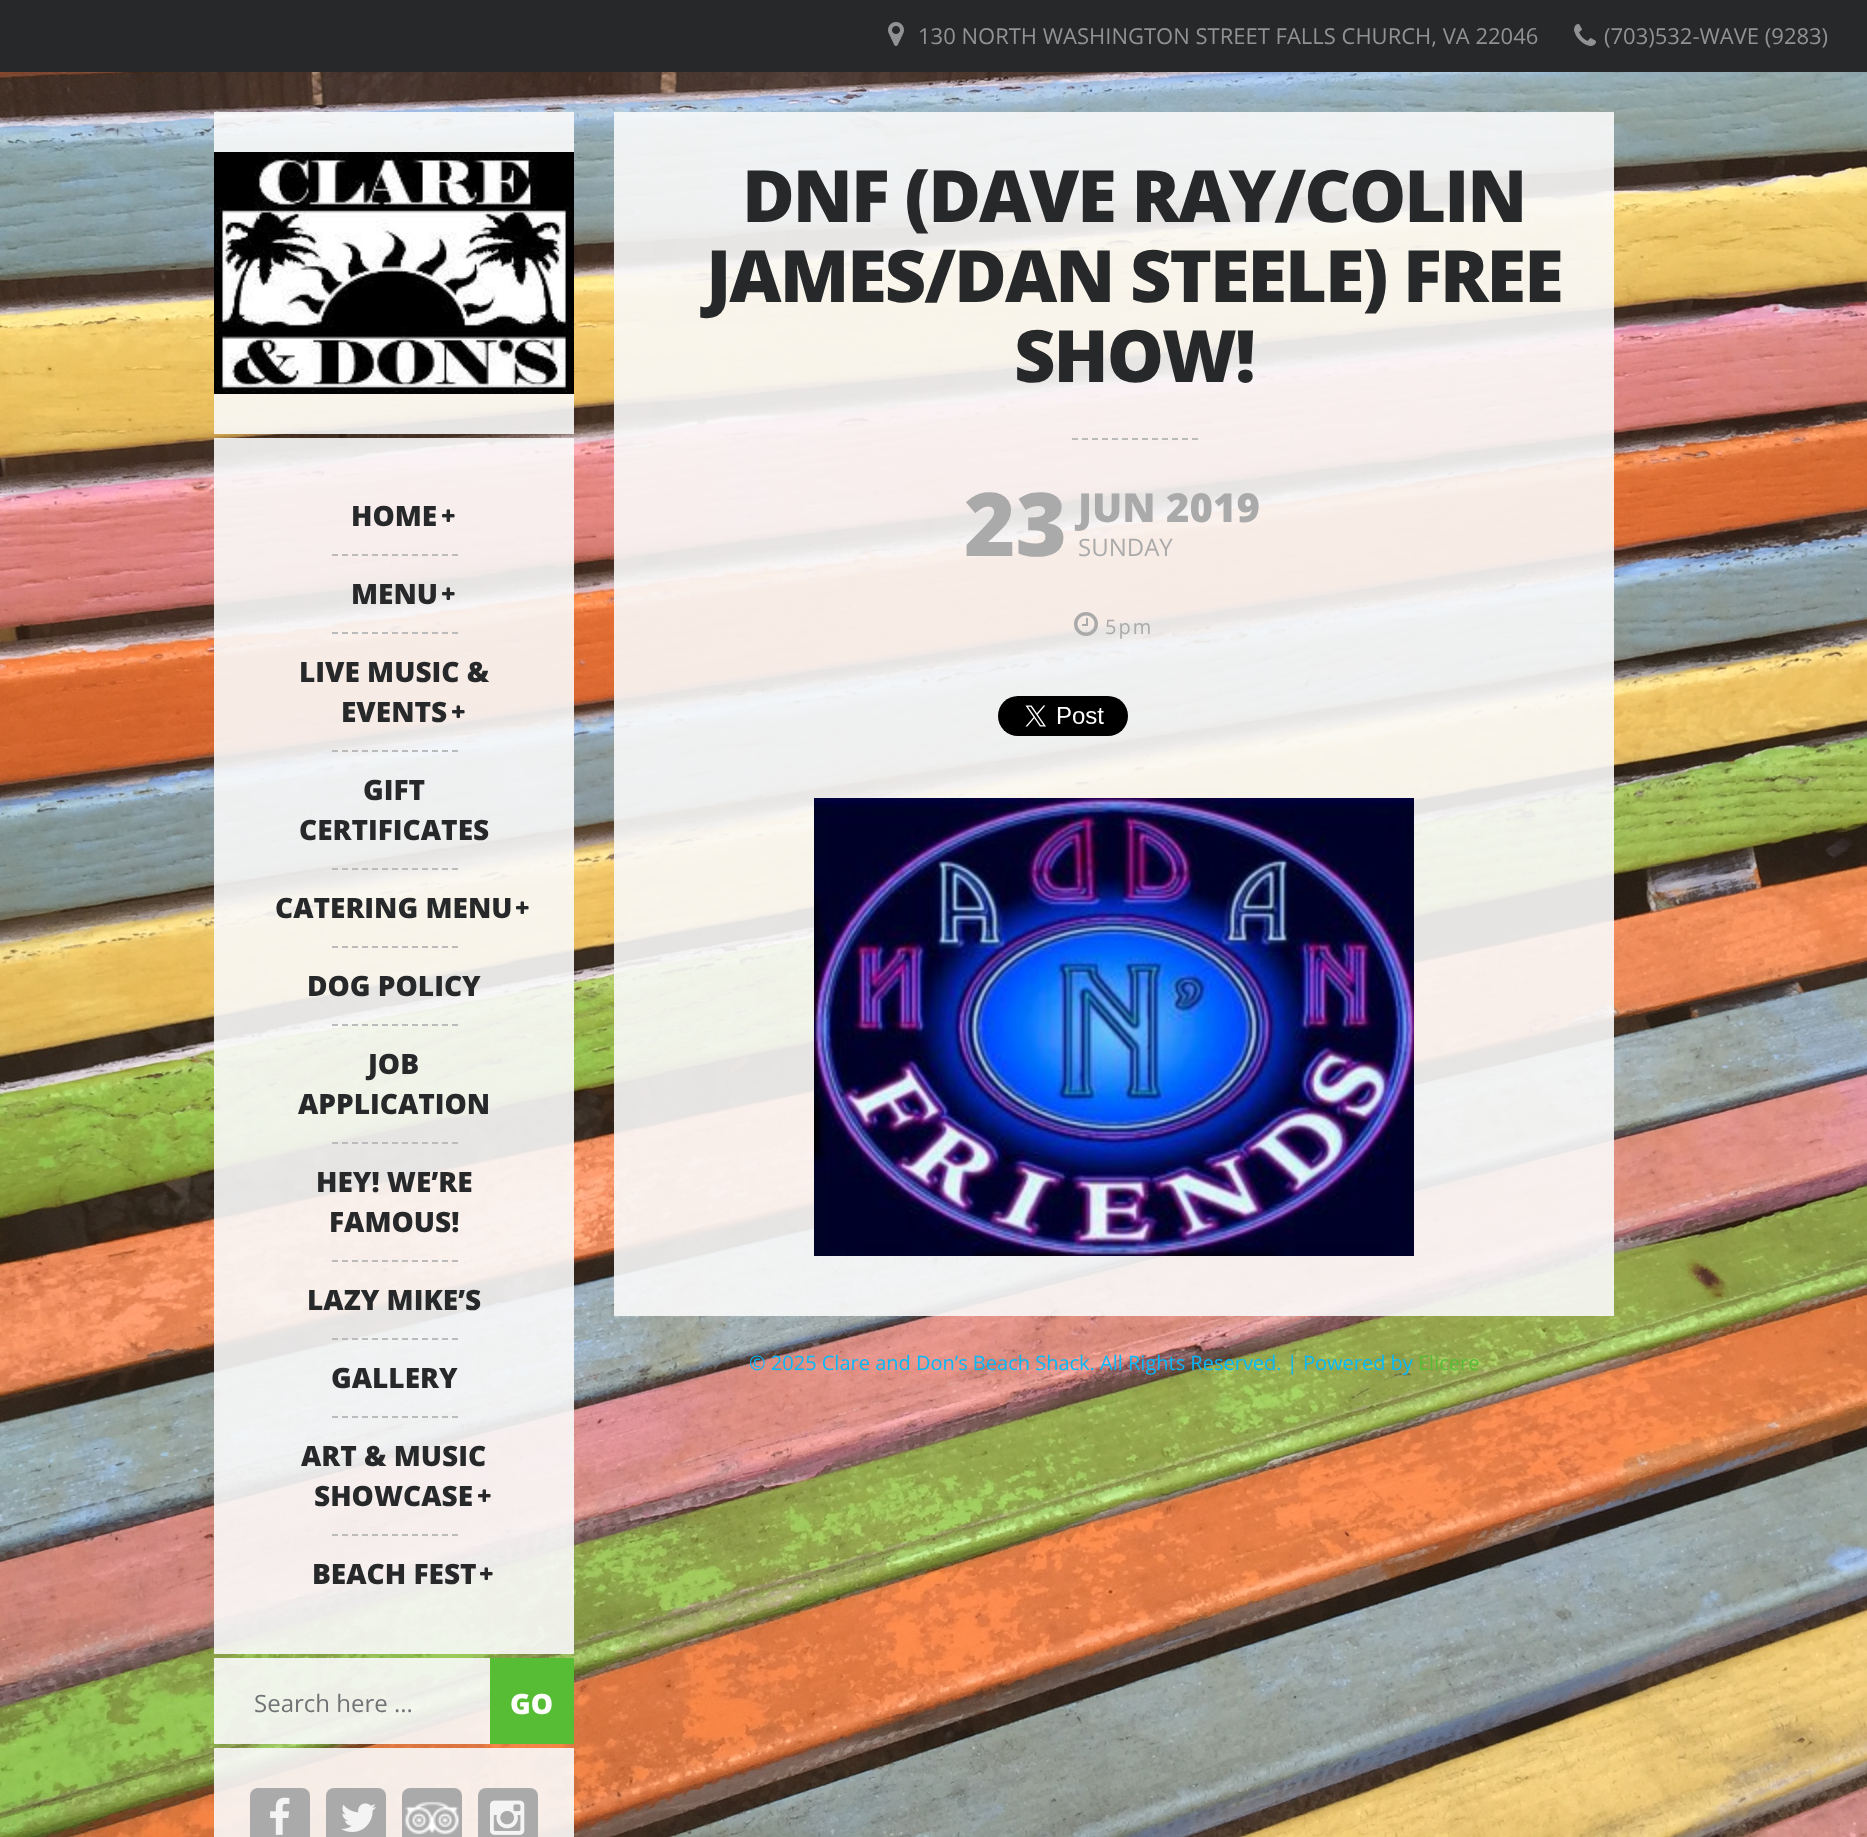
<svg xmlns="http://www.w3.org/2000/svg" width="1867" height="1837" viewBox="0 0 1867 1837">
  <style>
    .t1 { font: 22px Open Sans; fill: #909294; }
    .t2 { font: 800 28px Open Sans; fill: #26282a; }
    .t3 { font: 24px Open Sans; fill: #707274; }
    .t4 { font: 800 28px Open Sans; fill: #fff; }
    .t5 { font: 800 72px Open Sans; letter-spacing: -2px; fill: #26282a; }
    .t6 { font: 800 88px Open Sans; fill: #aaa; }
    .t7 { font: 800 40px Open Sans; fill: #aaa; }
    .t8 { font: 24px Open Sans; fill: #aaa; }
    .t9 { font: 20px Open Sans; letter-spacing: 2px; fill: #aaa; }
    .t10 { font: 20px Open Sans; fill: #05b9fa; }
    .t11 { font: 20px Open Sans; fill: #57bd35; }
  </style>
  <rect width="100%" height="100%" fill="#fff"/>
  <rect x="0" y="0" width="1867" height="72" fill="#26282a"/>
  <image x="888" y="22" width="16" height="24" href="images/1.png"/>
  <text x="918" y="44" class="t1">130 NORTH WASHINGTON STREET FALLS CHURCH, VA 22046</text>
  <image x="1574" y="24" width="22" height="22" href="images/2.png"/>
  <text x="1604" y="44" class="t1">(703)532-WAVE (9283)</text>
  <image x="0" y="72" width="1867" height="1765" href="images/3.png"/>
  <rect x="214" y="112" width="360" height="322" fill="#f9f9f9e6"/>
  <image x="214" y="152" width="360" height="242" href="images/4.png"/>
  <rect x="214" y="438" width="360" height="1216" fill="#f9f9f9e6"/>
  <text x="351" y="526" class="t2">HOME</text>
  <image x="442" y="509" width="13" height="13" href="images/5.png"/>
  <path d="M332 555H458" fill="none" stroke="#bbb" stroke-width="2" stroke-dasharray="6 4"/>
  <text x="351" y="604" class="t2">MENU</text>
  <image x="442" y="587" width="13" height="13" href="images/6.png"/>
  <path d="M332 633H458" fill="none" stroke="#bbb" stroke-width="2" stroke-dasharray="6 4"/>
  <text x="299" y="682" class="t2">LIVE MUSIC &amp;</text>
  <text x="341" y="722" class="t2">EVENTS</text>
  <image x="452" y="705" width="13" height="13" href="images/7.png"/>
  <path d="M332 751H458" fill="none" stroke="#bbb" stroke-width="2" stroke-dasharray="6 4"/>
  <text x="363" y="800" class="t2">GIFT</text>
  <text x="299" y="840" class="t2">CERTIFICATES</text>
  <path d="M332 869H458" fill="none" stroke="#bbb" stroke-width="2" stroke-dasharray="6 4"/>
  <text x="275" y="918" class="t2">CATERING MENU</text>
  <image x="516" y="901" width="13" height="13" href="images/8.png"/>
  <path d="M332 947H458" fill="none" stroke="#bbb" stroke-width="2" stroke-dasharray="6 4"/>
  <text x="307" y="996" class="t2">DOG POLICY</text>
  <path d="M332 1025H458" fill="none" stroke="#bbb" stroke-width="2" stroke-dasharray="6 4"/>
  <text x="368" y="1074" class="t2">JOB</text>
  <text x="298" y="1114" class="t2">APPLICATION</text>
  <path d="M332 1143H458" fill="none" stroke="#bbb" stroke-width="2" stroke-dasharray="6 4"/>
  <text x="316" y="1192" class="t2">HEY! WE’RE</text>
  <text x="329" y="1232" class="t2">FAMOUS!</text>
  <path d="M332 1261H458" fill="none" stroke="#bbb" stroke-width="2" stroke-dasharray="6 4"/>
  <text x="307" y="1310" class="t2">LAZY MIKE’S</text>
  <path d="M332 1339H458" fill="none" stroke="#bbb" stroke-width="2" stroke-dasharray="6 4"/>
  <text x="331" y="1388" class="t2">GALLERY</text>
  <path d="M332 1417H458" fill="none" stroke="#bbb" stroke-width="2" stroke-dasharray="6 4"/>
  <text x="301" y="1466" class="t2">ART &amp; MUSIC</text>
  <text x="314" y="1506" class="t2">SHOWCASE</text>
  <image x="478" y="1489" width="13" height="13" href="images/9.png"/>
  <path d="M332 1535H458" fill="none" stroke="#bbb" stroke-width="2" stroke-dasharray="6 4"/>
  <text x="312" y="1584" class="t2">BEACH FEST</text>
  <image x="480" y="1567" width="13" height="13" href="images/10.png"/>
  <rect x="214" y="1658" width="276" height="86" fill="#f9f9f9e6"/>
  <text x="254" y="1712" class="t3">Search here ...</text>
  <rect x="490" y="1658" width="84" height="86" fill="#57bd35"/>
  <text x="510" y="1714" class="t4">GO</text>
  <rect x="214" y="1748" width="360" height="89" fill="#f9f9f9e6"/>
  <rect x="250" y="1788" width="60" height="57" rx="8" fill="#aaa"/>
  <image x="270" y="1797" width="20" height="38" href="images/11.png"/>
  <rect x="326" y="1788" width="60" height="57" rx="8" fill="#aaa"/>
  <image x="341" y="1803" width="35" height="29" href="images/12.png"/>
  <rect x="402" y="1788" width="60" height="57" rx="8" fill="#aaa"/>
  <image x="404" y="1801" width="56" height="34" href="images/13.png"/>
  <rect x="478" y="1788" width="60" height="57" rx="8" fill="#aaa"/>
  <image x="490" y="1800" width="35" height="35" href="images/14.png"/>
  <rect x="614" y="112" width="1000" height="1204" fill="#f9f9f9e6"/>
  <text x="742" y="222" class="t5">DNF (DAVE RAY/COLIN</text>
  <text x="706" y="302" class="t5">JAMES/DAN STEELE) FREE</text>
  <text x="1014" y="382" class="t5">SHOW!</text>
  <path d="M1072 439H1198" fill="none" stroke="#bbb" stroke-width="2" stroke-dasharray="6 4"/>
  <text x="964" y="556" class="t6">23</text>
  <text x="1078" y="522" class="t7">JUN 2019</text>
  <text x="1078" y="556" class="t8">SUNDAY</text>
  <image x="1074" y="612" width="24" height="24" href="images/15.png"/>
  <text x="1105" y="634" class="t9">5pm</text>
  <image x="998" y="696" width="130" height="40" href="images/16.png"/>
  <image x="814" y="798" width="600" height="458" href="images/17.png"/>
  <text x="749" y="1370" class="t10">© 2025 Clare and Don’s Beach Shack. All Rights Reserved. | Powered by</text>
  <text x="1418" y="1370" class="t11">Elicere</text>
</svg>
